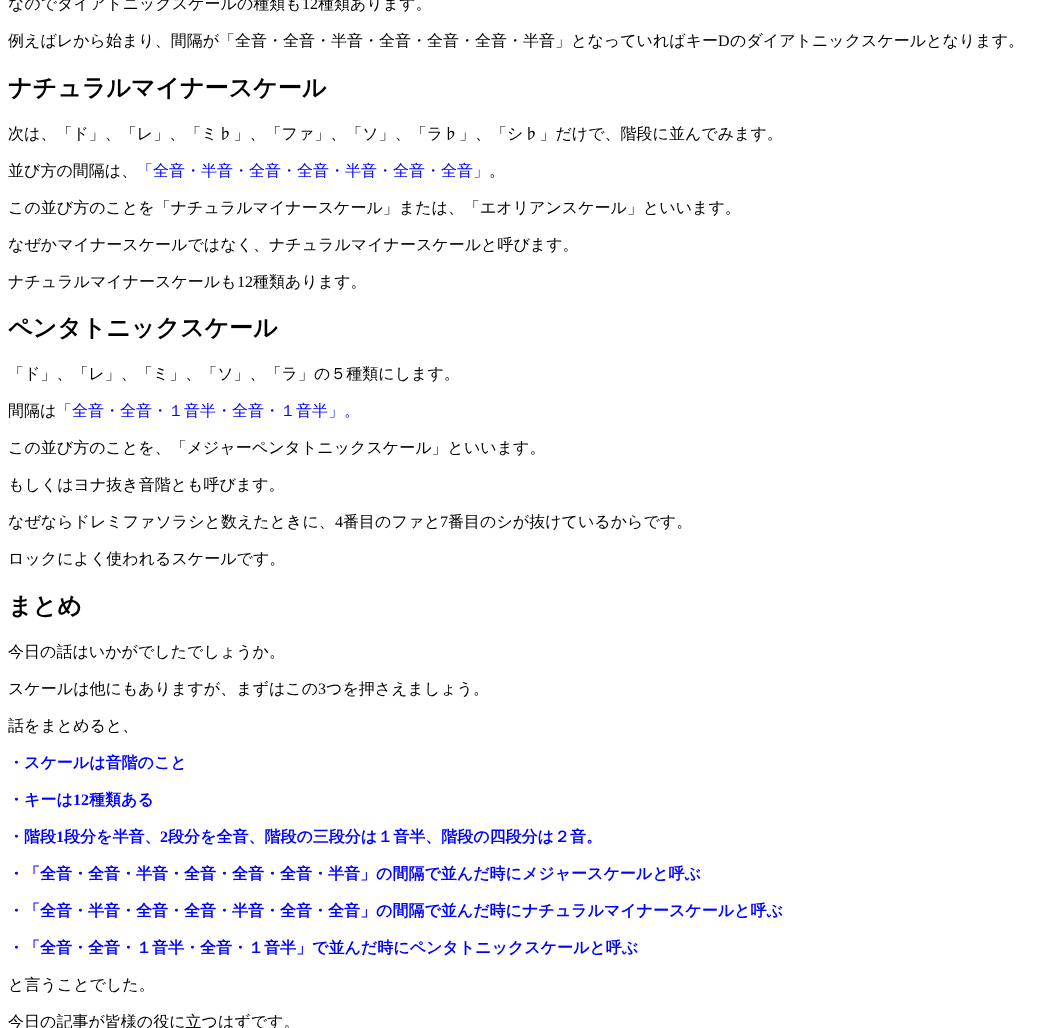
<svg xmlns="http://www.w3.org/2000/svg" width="1043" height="1028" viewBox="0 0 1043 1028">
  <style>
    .t1 { font: 500 16px WenQuanYi Zen Hei; fill: #000; }
    .t2 { font: 16px Liberation Serif; fill: #000; }
    .t3 { font: bold 24px WenQuanYi Zen Hei; fill: #000; }
    .t4 { font: 500 16px WenQuanYi Zen Hei; fill: #00f; }
    .t5 { font: bold 16px WenQuanYi Zen Hei; fill: #00f; }
    .t6 { font: bold 16px Liberation Serif; fill: #00f; }
  </style>
  <rect width="100%" height="100%" fill="#fff"/>
  <text x="8" y="9" class="t1">なのでダイアトニックスケールの種類も</text>
  <text x="302" y="9" class="t2">12</text>
  <text x="318" y="9" class="t1">種類あります。</text>
  <text x="8" y="46" class="t1">例えばレから始まり、間隔が「全音・全音・半音・全音・全音・全音・半音」となっていればキー</text>
  <text x="718" y="46" class="t2">D</text>
  <text x="730" y="46" class="t1">のダイアトニックスケールとなります。</text>
  <text x="8" y="96" class="t3">ナチュラルマイナースケール</text>
  <text x="8" y="139" class="t1">次は、「ド」、「レ」、「ミ♭」、「ファ」、「ソ」、「ラ♭」、「シ♭」だけで、階段に並んでみます。</text>
  <text x="8" y="176" class="t1">並び方の間隔は、</text>
  <text x="137" y="176" class="t4">「全音・半音・全音・全音・半音・全音・全音」</text>
  <text x="489" y="176" class="t1">。</text>
  <text x="8" y="213" class="t1">この並び方のことを「ナチュラルマイナースケール」または、「エオリアンスケール」といいます。</text>
  <text x="8" y="250" class="t1">なぜかマイナースケールではなく、ナチュラルマイナースケールと呼びます。</text>
  <text x="8" y="287" class="t1">ナチュラルマイナースケールも</text>
  <text x="237" y="287" class="t2">12</text>
  <text x="253" y="287" class="t1">種類あります。</text>
  <text x="8" y="336" class="t3">ペンタトニックスケール</text>
  <text x="8" y="379" class="t1">「ド」、「レ」、「ミ」、「ソ」、「ラ」の５種類にします。</text>
  <text x="8" y="416" class="t1">間隔は</text>
  <text x="56" y="416" class="t4">「全音・全音・１音半・全音・１音半」。</text>
  <text x="8" y="453" class="t1">この並び方のことを、「メジャーペンタトニックスケール」といいます。</text>
  <text x="8" y="490" class="t1">もしくはヨナ抜き音階とも呼びます。</text>
  <text x="8" y="527" class="t1">なぜならドレミファソラシと数えたときに、</text>
  <text x="335" y="527" class="t2">4</text>
  <text x="343" y="527" class="t1">番目のファと</text>
  <text x="440" y="527" class="t2">7</text>
  <text x="448" y="527" class="t1">番目のシが抜けているからです。</text>
  <text x="8" y="564" class="t1">ロックによく使われるスケールです。</text>
  <text x="8" y="614" class="t3">まとめ</text>
  <text x="8" y="657" class="t1">今日の話はいかがでしたでしょうか。</text>
  <text x="8" y="694" class="t1">スケールは他にもありますが、まずはこの</text>
  <text x="318" y="694" class="t2">3</text>
  <text x="326" y="694" class="t1">つを押さえましょう。</text>
  <text x="8" y="731" class="t1">話をまとめると、</text>
  <text x="8" y="768" class="t5">・スケールは音階のこと</text>
  <text x="8" y="805" class="t5">・キーは</text>
  <text x="73" y="805" class="t6">12</text>
  <text x="89" y="805" class="t5">種類ある</text>
  <text x="8" y="842" class="t5">・階段</text>
  <text x="56" y="842" class="t6">1</text>
  <text x="64" y="842" class="t5">段分を半音、</text>
  <text x="160" y="842" class="t6">2</text>
  <text x="168" y="842" class="t5">段分を全音、階段の三段分は１音半、階段の四段分は２音。</text>
  <text x="8" y="879" class="t5">・「全音・全音・半音・全音・全音・全音・半音」の間隔で並んだ時にメジャースケールと呼ぶ</text>
  <text x="8" y="916" class="t5">・「全音・半音・全音・全音・半音・全音・全音」の間隔で並んだ時にナチュラルマイナースケールと呼ぶ</text>
  <text x="8" y="953" class="t5">・「全音・全音・１音半・全音・１音半」で並んだ時にペンタトニックスケールと呼ぶ</text>
  <text x="8" y="990" class="t1">と言うことでした。</text>
  <text x="8" y="1027" class="t1">今日の記事が皆様の役に立つはずです。</text>
</svg>
